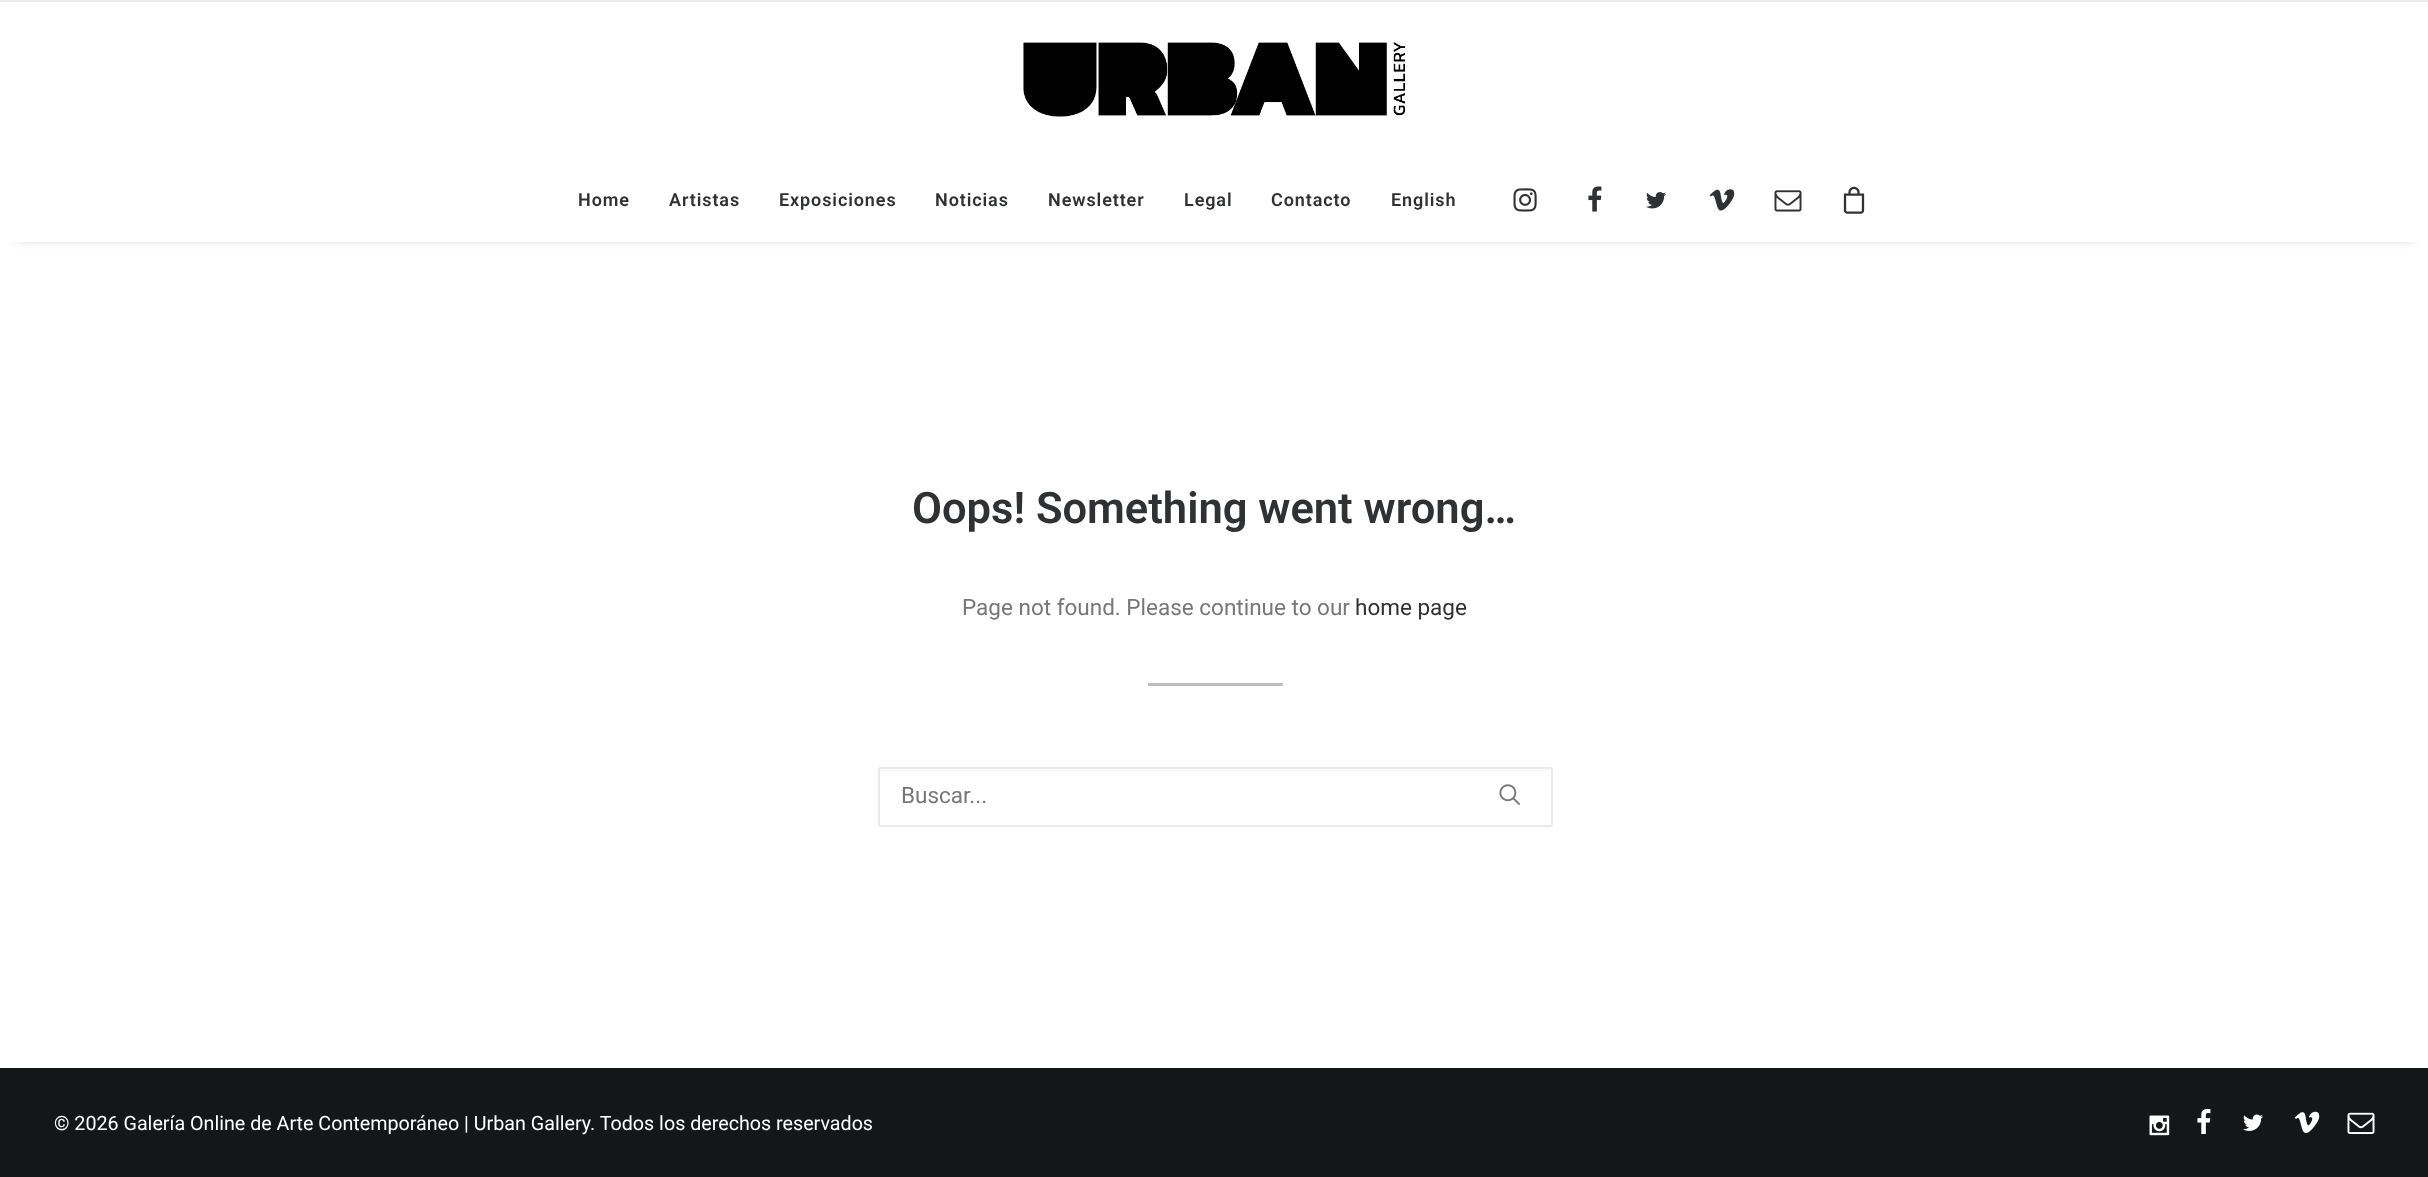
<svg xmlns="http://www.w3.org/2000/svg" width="2428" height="1177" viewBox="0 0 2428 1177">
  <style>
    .t1 { font: 600 18px Roboto; letter-spacing: 0.9px; fill: #303133; }
    .t2 { font: 600 43.5px Roboto; fill: #303133; }
    .t3 { font: 22.5px Roboto; fill: #777; }
    .t4 { font: 22.5px Roboto; fill: #303133; }
    .t5 { font: 19.7px Roboto; fill: #fff; }
  </style>
  <rect width="100%" height="100%" fill="#fff"/>
  <rect x="0" y="0" width="2428" height="2" fill="#eaeaea"/>
  <image x="1023" y="42" width="383" height="75" href="images/1.png"/>
  <rect x="15" y="179" width="2399" height="54" fill="#00000099" filter="blur(7.5px)"/>
  <rect x="0" y="163" width="2428" height="79" fill="#fff"/>
  <text x="578" y="206" class="t1">Home</text>
  <text x="669" y="206" class="t1">Artistas</text>
  <text x="779" y="206" class="t1">Exposiciones</text>
  <text x="935" y="206" class="t1">Noticias</text>
  <text x="1048" y="206" class="t1">Newsletter</text>
  <text x="1184" y="206" class="t1">Legal</text>
  <text x="1271" y="206" class="t1">Contacto</text>
  <text x="1391" y="206" class="t1">English</text>
  <image x="1513" y="188" width="24" height="24" href="images/2.png"/>
  <image x="1588" y="186" width="14" height="26" href="images/3.png"/>
  <image x="1646" y="192" width="20" height="17" href="images/4.png"/>
  <image x="1709" y="189" width="26" height="22" href="images/5.png"/>
  <image x="1774" y="190" width="28" height="22" href="images/6.png"/>
  <image x="1843" y="186" width="22" height="28" href="images/7.png"/>
  <text x="912" y="523" class="t2">Oops! Something went wrong…</text>
  <text x="962" y="615" class="t3">Page not found. Please continue to our</text>
  <text x="1355" y="615" class="t4">home page</text>
  <rect x="1148" y="683" width="135" height="3" fill="#bfbfbf"/>
  <path d="M880 771H1550L1551 772C1551 771 1552 768 1550 768H880L879 769V772Z" fill="#f9f9f9"/>
  <rect x="879" y="768" width="673" height="58" rx="2" fill="none" stroke="#eaeaea" stroke-width="2"/>
  <text x="901" y="803" class="t3">Buscar...</text>
  <image x="1499" y="784" width="21" height="21" href="images/8.png"/>
  <rect x="0" y="1068" width="2428" height="109" fill="#141618"/>
  <text x="54" y="1130" class="t5">© 2026 Galería Online de Arte Contemporáneo | Urban Gallery. Todos los derechos reservados</text>
  <image x="2149" y="1115" width="21" height="21" href="images/9.png"/>
  <image x="2197" y="1108" width="14" height="26" href="images/10.png"/>
  <image x="2243" y="1114" width="20" height="17" href="images/11.png"/>
  <image x="2294" y="1111" width="26" height="22" href="images/12.png"/>
  <image x="2347" y="1112" width="28" height="22" href="images/13.png"/>
</svg>
